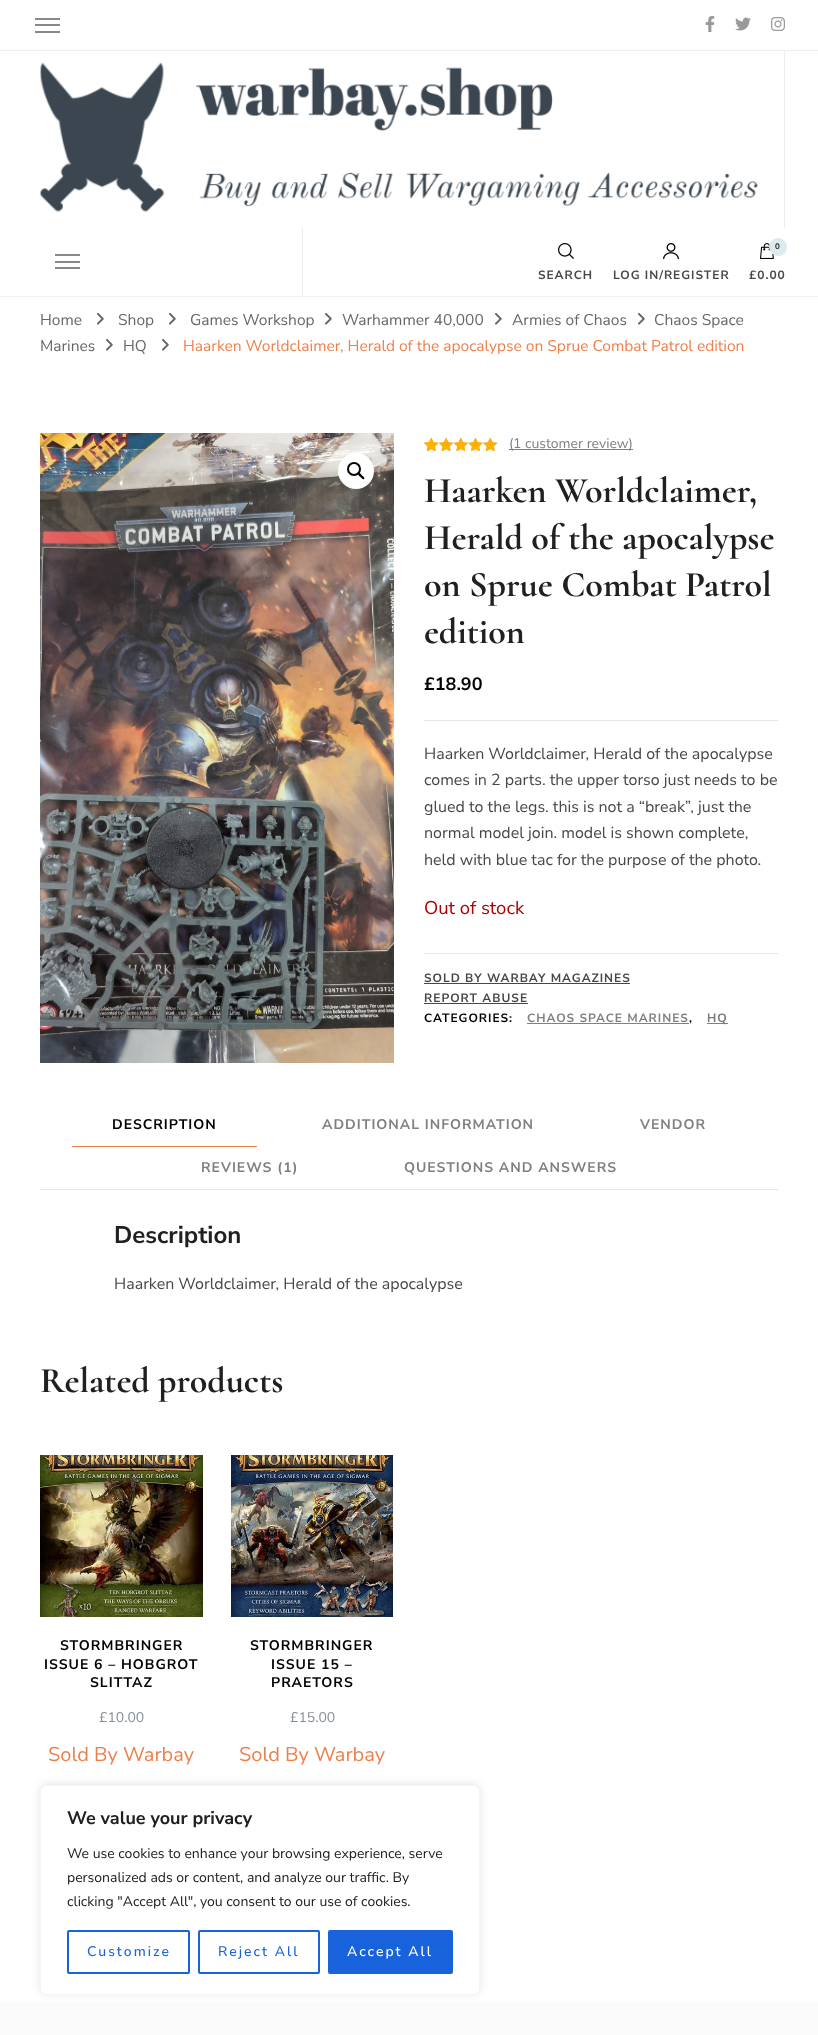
<svg xmlns="http://www.w3.org/2000/svg" width="818" height="2035" viewBox="0 0 818 2035">
  <style>
    .t1 { font: bold 12px Nunito Sans; letter-spacing: 1px; fill: #474747; }
    .t2 { font: bold 8px Nunito Sans; letter-spacing: 1px; fill: #202020; }
    .t3 { font: 15.55px Nunito Sans; fill: #666; }
    .t4 { font: 15.55px Nunito Sans; fill: #ee7f4b; }
    .t5 { font: 14px Nunito Sans; fill: #797979; }
    .t6 { font: 14px Nunito Sans; fill: #808080; }
    .t7 { font: bold 36px Cormorant; fill: #202020; }
    .t8 { font: bold 18px Nunito Sans; fill: #000; }
    .t9 { font: 16px Nunito Sans; fill: #474747; }
    .t10 { font: 18.5px Nunito Sans; fill: #a00; }
    .t11 { font: bold 12px Nunito Sans; letter-spacing: 1px; fill: #000; }
    .t12 { font: bold 12px Nunito Sans; letter-spacing: 1px; fill: #808080; }
    .t13 { font: bold 12px Nunito Sans; letter-spacing: 1px; fill: #797979; }
    .t14 { font: bold 14px Nunito Sans; letter-spacing: 1px; fill: #000; }
    .t15 { font: bold 14px Nunito Sans; letter-spacing: 1px; fill: #808080; }
    .t16 { font: bold 24px Nunito Sans; fill: #202020; }
    .t17 { font: 14px Nunito Sans; fill: #868e96; }
    .t18 { font: 20px Nunito Sans; fill: #ee7f4b; }
    .t19 { font: bold 18px Nunito Sans; fill: #202020; }
    .t20 { font: 14px Nunito Sans; fill: #202020; }
    .t21 { font: 500 14px Nunito Sans; letter-spacing: 2px; fill: #1863dc; }
    .t22 { font: 500 14px Nunito Sans; letter-spacing: 2px; fill: #fff; }
  </style>
  <rect width="100%" height="100%" fill="#fff"/>
  <rect x="0" y="50" width="818" height="1" fill="#ededed"/>
  <rect x="35" y="18" width="25" height="2" fill="#888"/>
  <rect x="35" y="24" width="25" height="2" fill="#888"/>
  <rect x="35" y="31" width="25" height="2" fill="#888"/>
  <image x="705" y="16" width="10" height="16" href="images/1.png"/>
  <image x="735" y="17" width="16" height="14" href="images/2.png"/>
  <image x="771" y="17" width="14" height="14" href="images/3.png"/>
  <rect x="0" y="296" width="818" height="1" fill="#f2f2f2"/>
  <rect x="784" y="51" width="1" height="177" fill="#ededed"/>
  <image x="40" y="62" width="718" height="151" href="images/4.png"/>
  <rect x="55" y="254" width="25" height="2" fill="#888"/>
  <rect x="55" y="261" width="25" height="2" fill="#888"/>
  <rect x="55" y="267" width="25" height="2" fill="#888"/>
  <rect x="302" y="228" width="1" height="68" fill="#ededed"/>
  <image x="558" y="243" width="16" height="16" href="images/5.png"/>
  <text x="538" y="279" class="t1">SEARCH</text>
  <image x="663" y="243" width="16" height="16" href="images/6.png"/>
  <text x="613" y="279" class="t1">LOG IN/REGISTER</text>
  <image x="760" y="243" width="14" height="16" href="images/7.png"/>
  <circle cx="778" cy="247" r="9" fill="#dde9ed"/>
  <text x="775" y="249" class="t2">0</text>
  <text x="749" y="279" class="t1">£0.00</text>
  <text x="654" y="325" class="t3">Chaos Space</text>
  <text x="40" y="351" class="t3">Marines</text>
  <image x="106" y="339" width="7" height="12" href="images/8.png"/>
  <text x="40" y="325" class="t3">Home</text>
  <image x="97" y="313" width="7" height="12" href="images/8.png"/>
  <text x="118" y="325" class="t3">Shop</text>
  <image x="169" y="313" width="7" height="12" href="images/8.png"/>
  <text x="190" y="325" class="t3">Games Workshop</text>
  <image x="325" y="313" width="7" height="12" href="images/8.png"/>
  <text x="342" y="325" class="t3">Warhammer 40,000</text>
  <image x="495" y="313" width="7" height="12" href="images/8.png"/>
  <text x="512" y="325" class="t3">Armies of Chaos</text>
  <image x="638" y="313" width="7" height="12" href="images/8.png"/>
  <text x="123" y="351" class="t3">HQ</text>
  <image x="162" y="339" width="7" height="12" href="images/8.png"/>
  <text x="183" y="351" class="t4">Haarken Worldclaimer, Herald of the apocalypse on Sprue Combat Patrol edition</text>
  <image x="40" y="433" width="354" height="630" href="images/9.png"/>
  <circle cx="356" cy="471" r="18" fill="#fff"/>
  <circle cx="354" cy="469" r="6" fill="none" stroke="#000" stroke-width="2"/>
  <path d="M358.5 473.5C359.5 472 361.5 475 362 475.5C362.5 476 365.5 478 364 479C363 480 361 477.5 360.5 477C360 476.5 357 474.5 358.5 473.5Z" fill="#000"/>
  <image x="424" y="437" width="74" height="14" href="images/10.png"/>
  <image x="424" y="437" width="74" height="14" href="images/11.png"/>
  <image x="424" y="438" width="7" height="13" href="images/12.png"/>
  <rect x="509" y="449" width="124" height="1" fill="#808080"/>
  <text x="509" y="448" class="t5">(</text>
  <text x="513" y="448" class="t6">1</text>
  <text x="525" y="448" class="t6">customer review)</text>
  <text x="424" y="502" class="t7">Haarken Worldclaimer,</text>
  <text x="424" y="549" class="t7">Herald of the apocalypse</text>
  <text x="424" y="596" class="t7">on Sprue Combat Patrol</text>
  <text x="424" y="643" class="t7">edition</text>
  <text x="424" y="690" class="t8">£18.90</text>
  <rect x="424" y="720" width="354" height="1" fill="#e6e6e6"/>
  <text x="424" y="759" class="t9">Haarken Worldclaimer, Herald of the apocalypse</text>
  <text x="424" y="785" class="t9">comes in 2 parts. the upper torso just needs to be</text>
  <text x="424" y="812" class="t9">glued to the legs. this is not a “break”, just the</text>
  <text x="424" y="838" class="t9">normal model join. model is shown complete,</text>
  <text x="424" y="865" class="t9">held with blue tac for the purpose of the photo.</text>
  <text x="424" y="914" class="t10">Out of stock</text>
  <rect x="424" y="953" width="354" height="1" fill="#e6e6e6"/>
  <text x="424" y="982" class="t1">SOLD BY WARBAY MAGAZINES</text>
  <rect x="424" y="983" width="206" height="1" fill="#474747"/>
  <text x="424" y="1002" class="t1">REPORT ABUSE</text>
  <rect x="424" y="1003" width="104" height="1" fill="#474747"/>
  <text x="424" y="1022" class="t11">CATEGORIES:</text>
  <text x="527" y="1022" class="t12">CHAOS SPACE MARINES</text>
  <rect x="527" y="1023" width="162" height="1" fill="#808080"/>
  <text x="689" y="1022" class="t11">,</text>
  <rect x="707" y="1023" width="21" height="1" fill="#808080"/>
  <text x="707" y="1022" class="t13">HQ</text>
  <rect x="40" y="1189" width="738" height="1" fill="#e6e6e6"/>
  <text x="112" y="1129" class="t14">DESCRIPTION</text>
  <rect x="72" y="1146" width="185" height="1" fill="#ee7f4b"/>
  <text x="322" y="1129" class="t15">ADDITIONAL INFORMATION</text>
  <text x="640" y="1129" class="t15">VENDOR</text>
  <text x="201" y="1172" class="t15">REVIEWS (1)</text>
  <text x="404" y="1172" class="t15">QUESTIONS AND ANSWERS</text>
  <text x="114" y="1243" class="t16">Description</text>
  <text x="114" y="1289" class="t9">Haarken Worldclaimer, Herald of the apocalypse</text>
  <text x="40" y="1392" class="t7">Related products</text>
  <image x="40" y="1455" width="163" height="162" href="images/13.png"/>
  <text x="60" y="1650" class="t14">STORMBRINGER</text>
  <text x="44" y="1669" class="t14">ISSUE 6 – HOBGROT</text>
  <text x="90" y="1687" class="t14">SLITTAZ</text>
  <text x="99" y="1722" class="t17">£10.00</text>
  <text x="48" y="1761" class="t18">Sold By Warbay</text>
  <image x="231" y="1455" width="162" height="162" href="images/14.png"/>
  <text x="250" y="1650" class="t14">STORMBRINGER</text>
  <text x="271" y="1669" class="t14">ISSUE 15 –</text>
  <text x="271" y="1687" class="t14">PRAETORS</text>
  <text x="290" y="1722" class="t17">£15.00</text>
  <text x="239" y="1761" class="t18">Sold By Warbay</text>
  <rect x="0" y="2002" width="818" height="33" fill="#fbfbfb"/>
  <rect x="40" y="1784" width="440" height="210" rx="6" fill="#acabab4d" filter="blur(5px)"/>
  <rect x="40.5" y="1785.5" width="439" height="209" rx="5.5" fill="#fff" stroke="#f4f4f4"/>
  <text x="67" y="1824" class="t19">We value your privacy</text>
  <text x="67" y="1858" class="t20">We use cookies to enhance your browsing experience, serve</text>
  <text x="67" y="1882" class="t20">personalized ads or content, and analyze our traffic. By</text>
  <text x="67" y="1906" class="t20">clicking "Accept All", you consent to our use of cookies.</text>
  <rect x="68" y="1931" width="121" height="42" rx="1" fill="none" stroke="#1863dc" stroke-width="2"/>
  <text x="87" y="1956" class="t21">Customize</text>
  <rect x="199" y="1931" width="120" height="42" rx="1" fill="none" stroke="#1863dc" stroke-width="2"/>
  <text x="218" y="1956" class="t21">Reject All</text>
  <rect x="329" y="1931" width="123" height="42" rx="1" fill="#1863dc" stroke="#1863dc" stroke-width="2"/>
  <text x="347" y="1956" class="t22">Accept All</text>
</svg>
